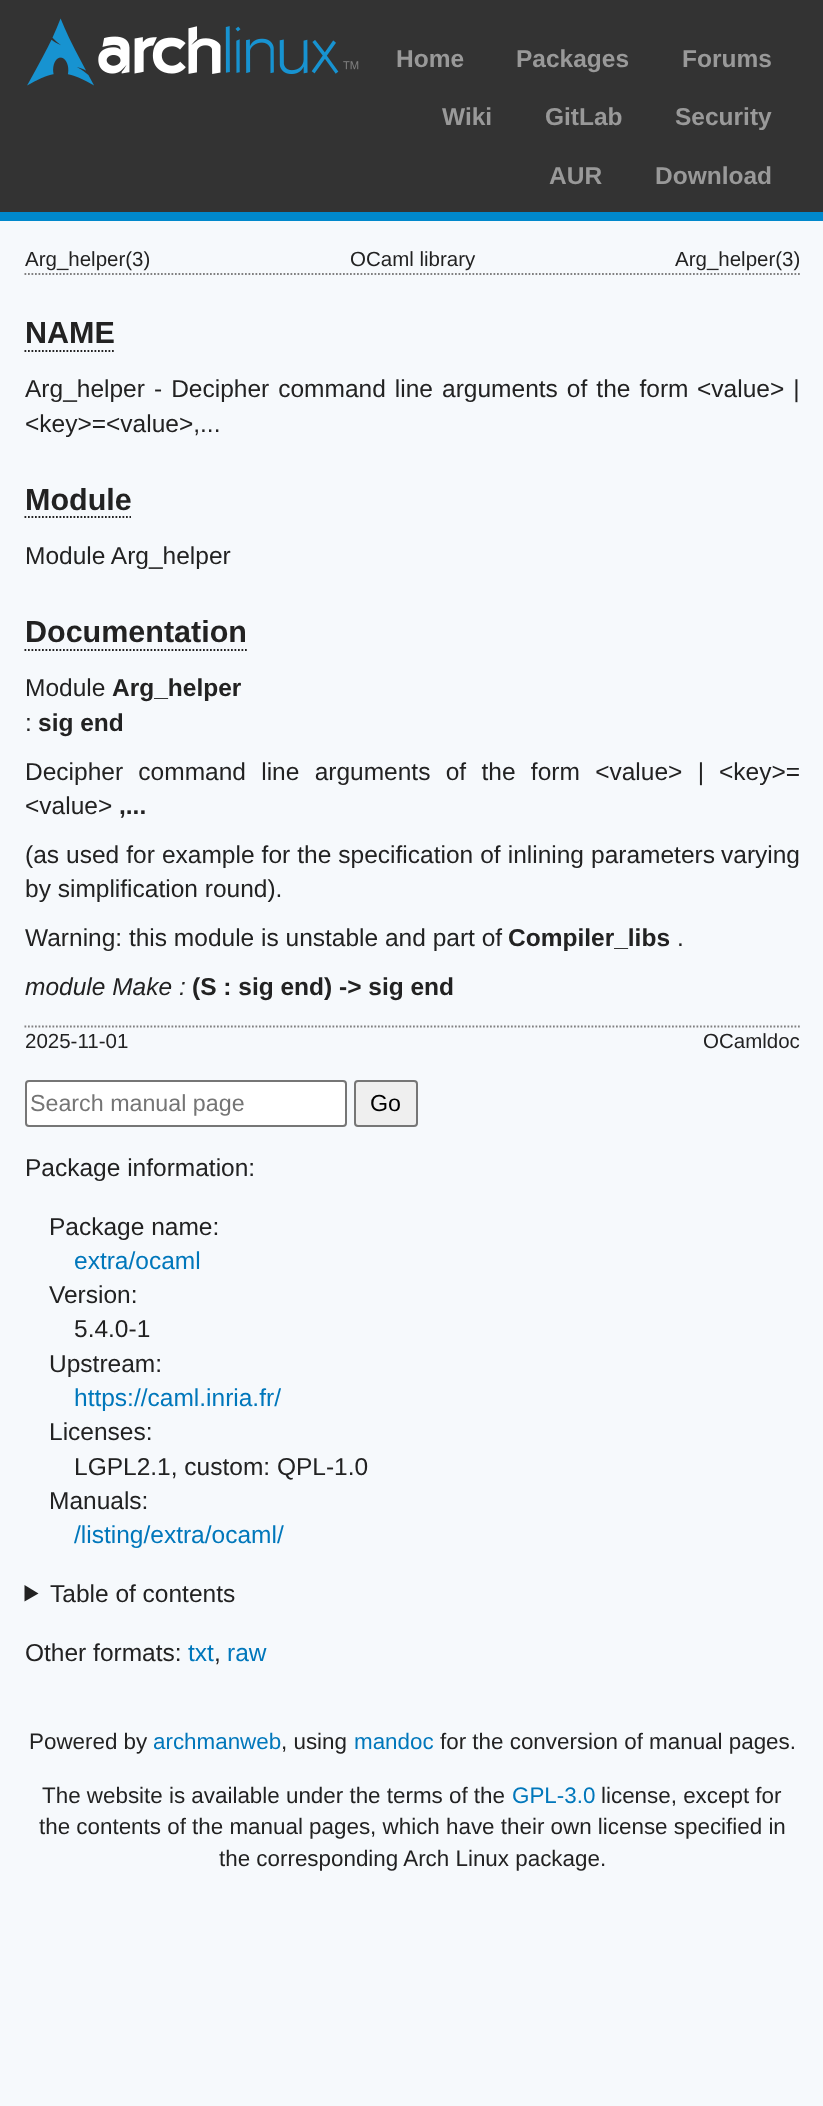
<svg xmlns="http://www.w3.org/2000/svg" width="823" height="2106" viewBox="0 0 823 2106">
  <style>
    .t1 { font: bold 24.5px Liberation Sans; fill: #999; }
    .t2 { font: 20.5px Liberation Sans; fill: #222; }
    .t3 { font: bold 30.5px Liberation Sans; fill: #222; }
    .t4 { font: 24.5px Liberation Sans; fill: #222; }
    .t5 { font: bold 24.5px Liberation Sans; fill: #222; }
    .t6 { font: italic 24.5px Liberation Sans; fill: #222; }
    .t7 { font: 23.25px Liberation Sans; fill: #757575; }
    .t8 { font: 23.25px Liberation Sans; fill: #000; }
    .t9 { font: 24.5px Liberation Sans; fill: #07b; }
    .t10 { font: 22.4px Liberation Sans; fill: #222; }
    .t11 { font: 22.4px Liberation Sans; fill: #07b; }
  </style>
  <rect width="100%" height="100%" fill="#f6f9fc"/>
  <rect x="0" y="0" width="823" height="212" fill="#333"/>
  <rect x="0" y="212" width="823" height="9" fill="#08c"/>
  <image x="27" y="18" width="332" height="68" href="images/1.png"/>
  <text x="396" y="67" class="t1">Home</text>
  <text x="516" y="67" class="t1">Packages</text>
  <text x="682" y="67" class="t1">Forums</text>
  <text x="442" y="125" class="t1">Wiki</text>
  <text x="545" y="125" class="t1">GitLab</text>
  <text x="675" y="125" class="t1">Security</text>
  <text x="549" y="184" class="t1">AUR</text>
  <text x="655" y="184" class="t1">Download</text>
  <path d="M24.5 274H800" fill="none" stroke="#808080" stroke-width="1.8" stroke-dasharray="1.75 1.75"/>
  <text x="25" y="266" class="t2">Arg_helper(3)</text>
  <text x="350" y="266" class="t2">OCaml library</text>
  <text x="675" y="266" class="t2">Arg_helper(3)</text>
  <text x="25" y="343" class="t3">NAME</text>
  <path d="M24.5 351H115.5" fill="none" stroke="#222" stroke-width="1.8" stroke-dasharray="1.75 1.75"/>
  <text x="25" y="397" word-spacing="2.25" class="t4">Arg_helper - Decipher command line arguments of the form</text>
  <text x="697" y="397" word-spacing="2.25" class="t4">&lt;value&gt; |</text>
  <text x="25" y="432" class="t4">&lt;key&gt;=&lt;value&gt;,...</text>
  <text x="25" y="510" class="t3">Module</text>
  <path d="M24.5 517H131" fill="none" stroke="#222" stroke-width="1.8" stroke-dasharray="1.75 1.75"/>
  <text x="25" y="564" class="t4">Module Arg_helper</text>
  <text x="25" y="642" class="t3">Documentation</text>
  <path d="M24.5 650H247" fill="none" stroke="#222" stroke-width="1.8" stroke-dasharray="1.75 1.75"/>
  <text x="25" y="696" class="t4">Module</text>
  <text x="112" y="696" class="t5">Arg_helper</text>
  <text x="25" y="731" class="t4">:</text>
  <text x="38" y="731" class="t5">sig end</text>
  <text x="25" y="780" word-spacing="8.5" class="t4">Decipher command line arguments of the form &lt;value&gt; |</text>
  <text x="719" y="780" class="t4">&lt;key&gt;=</text>
  <text x="25" y="814" class="t4">&lt;value&gt;</text>
  <text x="119" y="814" class="t5">,...</text>
  <text x="25" y="863" word-spacing="0.25" class="t4">(as used for example for the specification of inlining parameters</text>
  <text x="721" y="863" class="t4">varying</text>
  <text x="25" y="897" class="t4">by simplification round).</text>
  <text x="25" y="946" class="t4">Warning: this module is unstable and part of</text>
  <text x="508" y="946" class="t5">Compiler_libs</text>
  <text x="677" y="946" class="t4">.</text>
  <text x="25" y="995" class="t6">module Make :</text>
  <text x="192" y="995" class="t5">(S : sig end) -&gt; sig end</text>
  <path d="M24.5 1026.5H800" fill="none" stroke="#808080" stroke-width="1.8" stroke-dasharray="1.75 1.75"/>
  <text x="25" y="1048" class="t2">2025-11-01</text>
  <text x="703" y="1048" class="t2">OCamldoc</text>
  <rect x="26" y="1081" width="320" height="45" rx="3" fill="#fff" stroke="#767676" stroke-width="2"/>
  <text x="30" y="1111" class="t7">Search manual page</text>
  <rect x="355" y="1081" width="62" height="45" rx="3" fill="#efefef" stroke="#767676" stroke-width="2"/>
  <text x="370" y="1111" class="t8">Go</text>
  <text x="25" y="1176" class="t4">Package information:</text>
  <text x="49" y="1235" class="t4">Package name:</text>
  <text x="74" y="1269" class="t9">extra/ocaml</text>
  <text x="49" y="1303" class="t4">Version:</text>
  <text x="74" y="1337" class="t4">5.4.0-1</text>
  <text x="49" y="1372" class="t4">Upstream:</text>
  <text x="74" y="1406" class="t9">https://caml.inria.fr/</text>
  <text x="49" y="1440" class="t4">Licenses:</text>
  <text x="74" y="1475" class="t4">LGPL2.1, custom: QPL-1.0</text>
  <text x="49" y="1509" class="t4">Manuals:</text>
  <text x="74" y="1543" class="t9">/listing/extra/ocaml/</text>
  <path d="M24.5 1585L38.5 1593.5L24.5 1601.5Z" fill="#222"/>
  <text x="50" y="1602" class="t4">Table of contents</text>
  <text x="25" y="1661" class="t4">Other formats:</text>
  <text x="188" y="1661" class="t9">txt</text>
  <text x="214" y="1661" class="t4">,</text>
  <text x="227" y="1661" class="t9">raw</text>
  <text x="29" y="1749" class="t10">Powered by</text>
  <text x="153" y="1749" class="t11">archmanweb</text>
  <text x="281" y="1749" class="t10">, using</text>
  <text x="354" y="1749" class="t11">mandoc</text>
  <text x="440" y="1749" class="t10">for the conversion of manual pages.</text>
  <text x="42" y="1803" class="t10">The website is available under the terms of the</text>
  <text x="512" y="1803" class="t11">GPL-3.0</text>
  <text x="601" y="1803" class="t10">license, except for</text>
  <text x="39" y="1834" class="t10">the contents of the manual pages, which have their own license specified in</text>
  <text x="219" y="1866" class="t10">the corresponding Arch Linux package.</text>
</svg>
